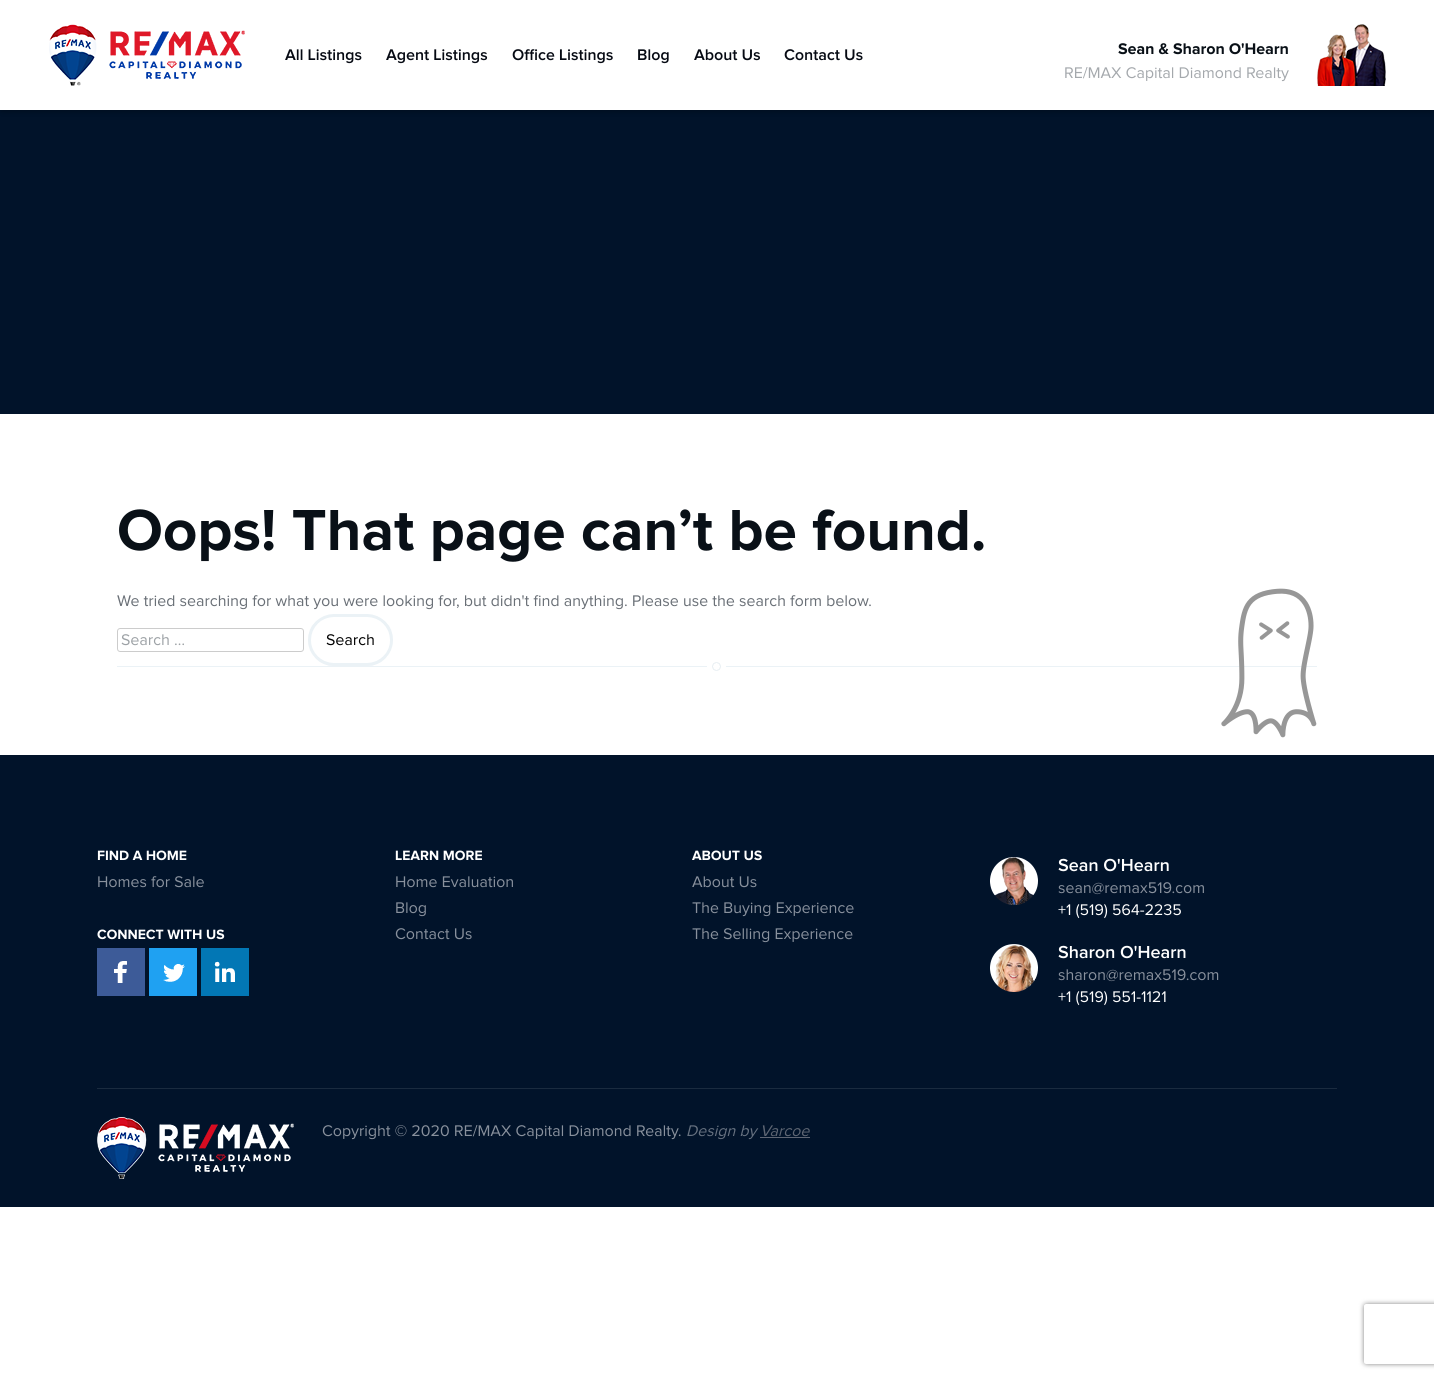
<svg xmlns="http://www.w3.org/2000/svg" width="1434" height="1378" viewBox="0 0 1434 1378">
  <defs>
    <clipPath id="clip1"><path d="M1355 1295H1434V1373H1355ZM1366 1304H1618C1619 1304 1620 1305 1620 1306V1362C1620 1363 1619 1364 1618 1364H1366C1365 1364 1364 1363 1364 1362V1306C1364 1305 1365 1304 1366 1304Z" clip-rule="evenodd"/></clipPath>
  </defs>
  <rect width="100%" height="100%" fill="#fff"/>
  <rect x="0" y="110" width="1434" height="304" fill="#01132a"/>
  <rect x="0" y="2" width="1434" height="110" fill="#0000003d" filter="blur(2px)"/>
  <rect x="0" y="0" width="1434" height="110" fill="#fff"/>
  <image x="49" y="24" width="196" height="62" href="images/1.png"/>
  <image x="285" y="49" width="77" height="15" href="images/2.png"/>
  <image x="386" y="49" width="102" height="15" href="images/3.png"/>
  <image x="512" y="49" width="101" height="15" href="images/4.png"/>
  <image x="638" y="49" width="31" height="15" href="images/5.png"/>
  <image x="694" y="49" width="66" height="12" href="images/6.png"/>
  <image x="784" y="49" width="79" height="12" href="images/7.png"/>
  <image x="1118" y="43" width="170" height="12" href="images/8.png"/>
  <image x="1065" y="67" width="224" height="15" href="images/9.png"/>
  <image x="1317" y="24" width="69" height="62" href="images/10.png"/>
  <rect x="117" y="666" width="1200" height="1" fill="#ebf2f6"/>
  <image x="119" y="509" width="865" height="53" href="images/11.png"/>
  <image x="117" y="595" width="754" height="15" href="images/12.png"/>
  <image x="1221" y="588" width="96" height="150" href="images/13.png"/>
  <rect x="117.5" y="628.5" width="186" height="23" rx="2.5" fill="none" stroke="#ccc"/>
  <image x="121" y="634" width="63" height="12" href="images/14.png"/>
  <rect x="309.5" y="615.5" width="82" height="49" rx="24.5" fill="none" stroke="#ebf2f6" stroke-width="3"/>
  <image x="326" y="634" width="48" height="12" href="images/15.png"/>
  <circle cx="716.5" cy="666.5" r="7" fill="none" stroke="#fff" stroke-width="5"/>
  <circle cx="716.5" cy="666.5" r="4" fill="#fff" stroke="#e7eef2"/>
  <rect x="0" y="755" width="1434" height="452" fill="#01132a"/>
  <image x="97" y="850" width="90" height="11" href="images/16.png"/>
  <image x="98" y="876" width="106" height="12" href="images/17.png"/>
  <image x="97" y="929" width="128" height="11" href="images/18.png"/>
  <image x="97" y="948" width="48" height="48" href="images/19.png"/>
  <image x="149" y="948" width="48" height="48" href="images/20.png"/>
  <image x="201" y="948" width="48" height="48" href="images/21.png"/>
  <image x="395" y="850" width="87" height="11" href="images/22.png"/>
  <image x="396" y="876" width="117" height="12" href="images/23.png"/>
  <image x="396" y="902" width="30" height="15" href="images/24.png"/>
  <image x="395" y="928" width="77" height="12" href="images/25.png"/>
  <image x="692" y="850" width="70" height="11" href="images/26.png"/>
  <image x="692" y="876" width="65" height="12" href="images/27.png"/>
  <image x="692" y="902" width="162" height="15" href="images/28.png"/>
  <image x="692" y="928" width="161" height="15" href="images/29.png"/>
  <image x="990" y="857" width="48" height="48" href="images/30.png"/>
  <image x="1058" y="858" width="111" height="14" href="images/31.png"/>
  <image x="1058" y="882" width="146" height="13" href="images/32.png"/>
  <image x="1058" y="904" width="123" height="15" href="images/33.png"/>
  <image x="990" y="944" width="48" height="48" href="images/34.png"/>
  <image x="1058" y="945" width="128" height="14" href="images/35.png"/>
  <image x="1058" y="969" width="161" height="13" href="images/36.png"/>
  <image x="1058" y="991" width="108" height="15" href="images/37.png"/>
  <rect x="97" y="1088" width="1240" height="1" fill="#1a2b3f"/>
  <image x="97" y="1117" width="197" height="62" href="images/38.png"/>
  <image x="322" y="1125" width="359" height="15" href="images/39.png"/>
  <image x="687" y="1125" width="72" height="15" href="images/40.png"/>
  <image x="762" y="1125" width="48" height="12" href="images/41.png"/>
  <rect x="760" y="1137" width="50" height="1" fill="#5f6674"/>
  <g clip-path="url(#clip1)">
    <rect x="1364" y="1304" width="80" height="60" rx="2" fill="#808080" filter="blur(2.5px)"/>
  </g>
</svg>
